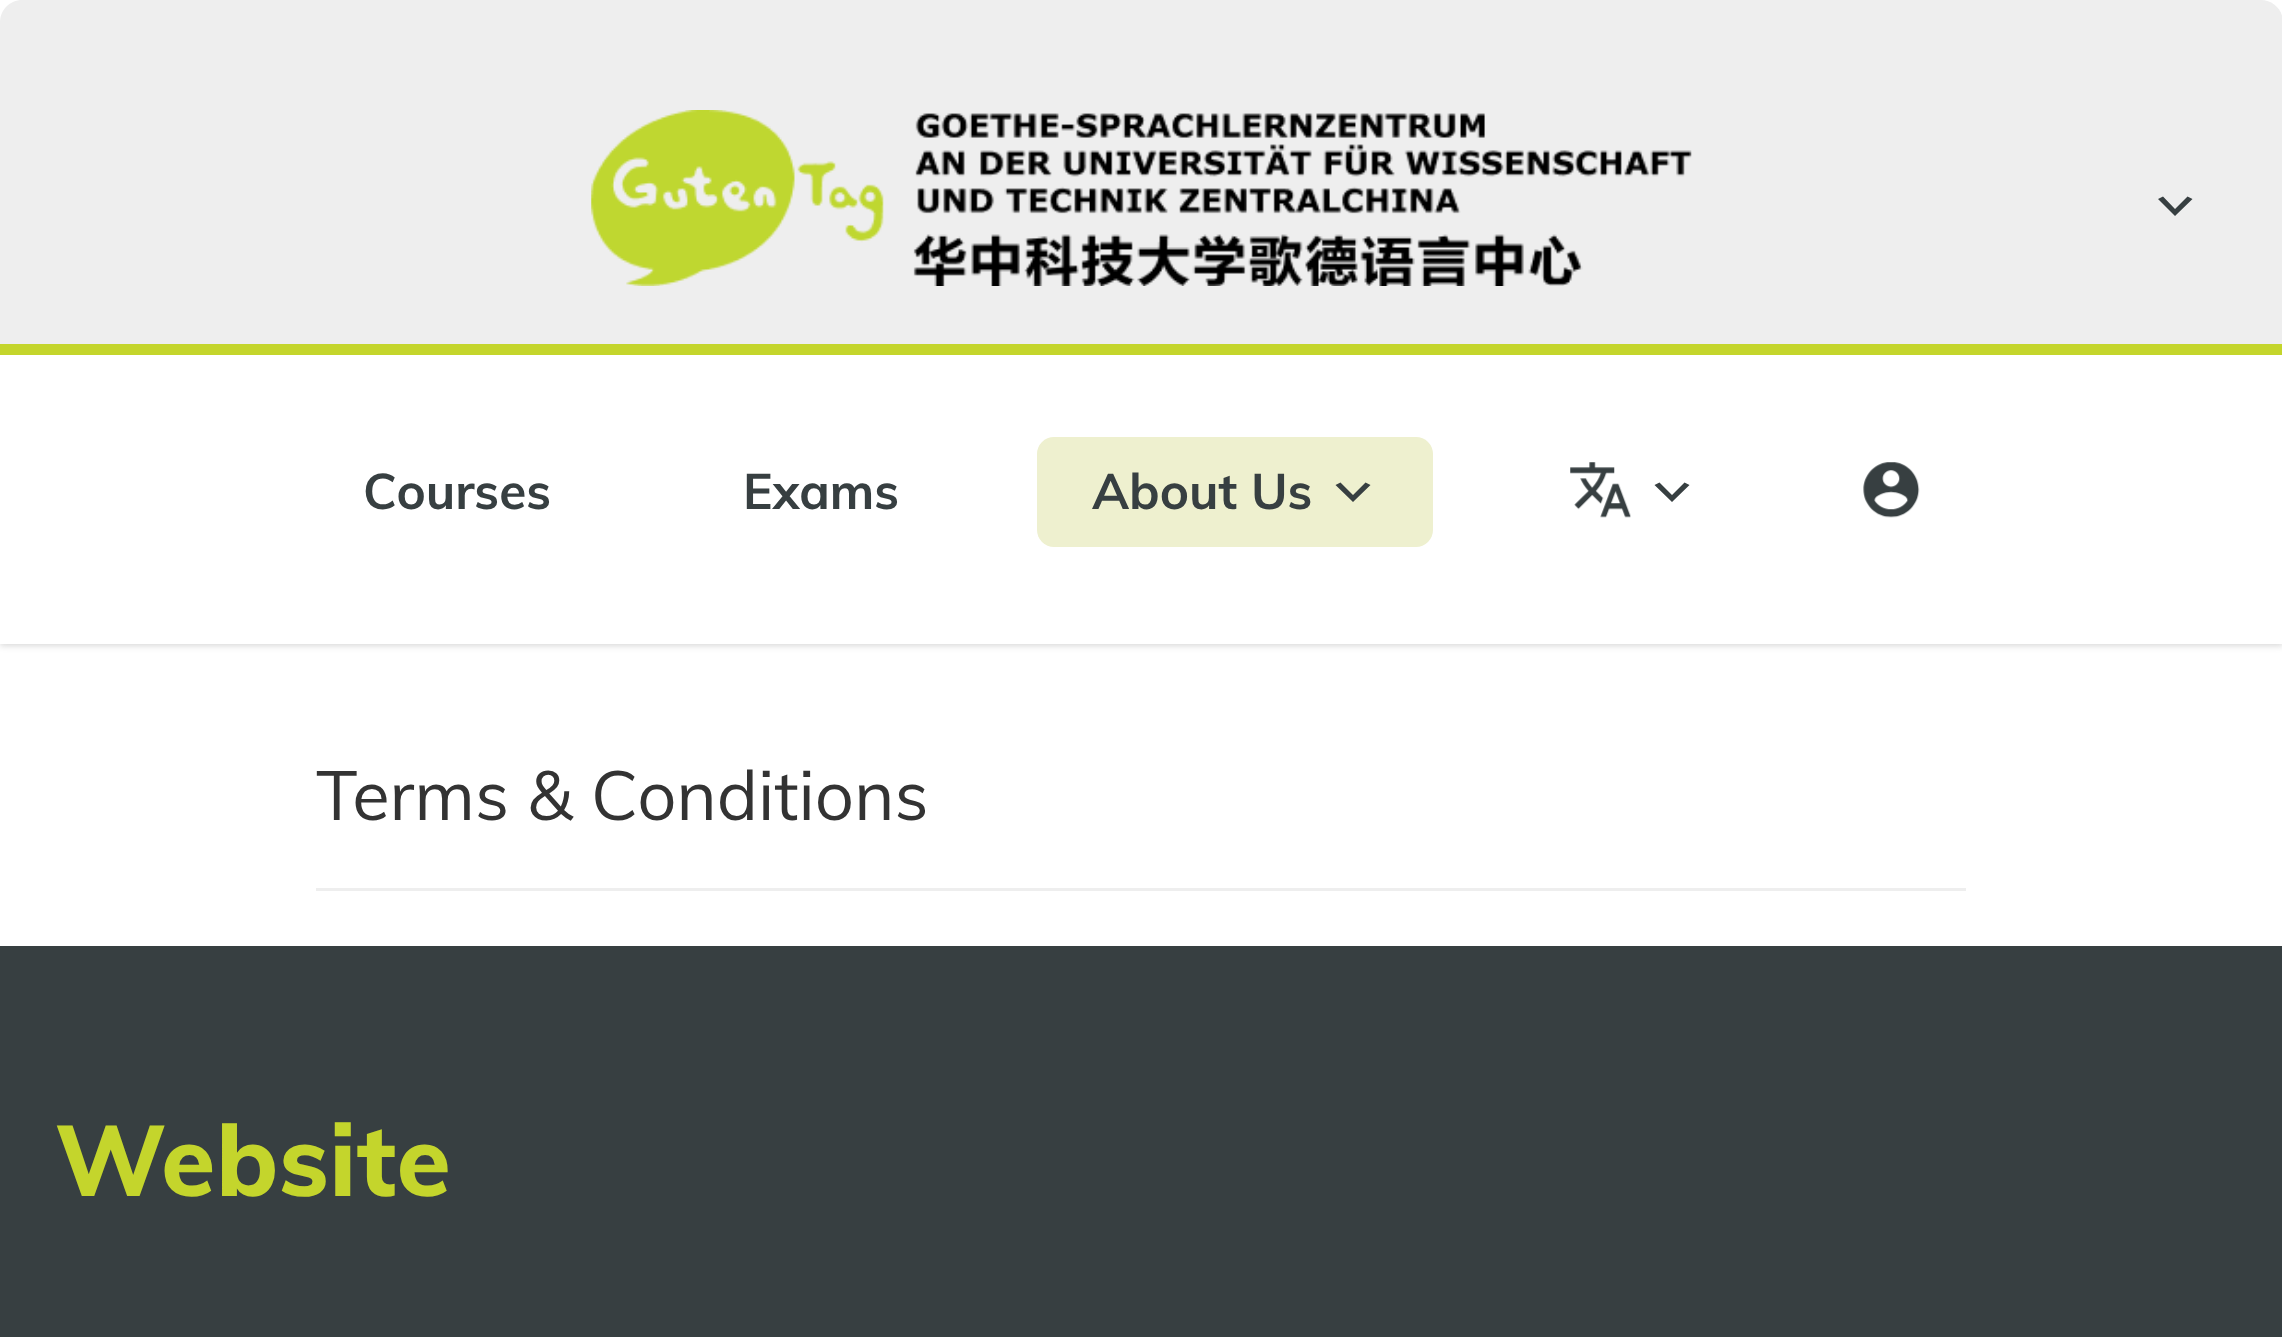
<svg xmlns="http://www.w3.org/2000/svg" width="2282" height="1337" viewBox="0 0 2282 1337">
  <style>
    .t1 { font: bold 49.5px Muli; fill: #373f41; }
    .t2 { font: 68.75px Muli; fill: #333; }
    .t3 { font: 800 99px Muli; letter-spacing: 0.5px; fill: #c4d52c; }
  </style>
  <defs>
    <clipPath id="clip1"><path d="M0 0H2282V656H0ZM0 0H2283V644H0Z" clip-rule="evenodd"/></clipPath>
  </defs>
  <rect width="100%" height="100%" fill="#fff"/>
  <g clip-path="url(#clip1)">
    <rect x="0" y="3" width="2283" height="643" fill="#00000026" filter="blur(3px)"/>
  </g>
  <rect x="0" y="643" width="2282" height="1" fill="#fffffff2"/>
  <path d="M22 0H2261C2273 0 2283 10 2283 22V344H0V22C0 10 10 0 22 0Z" fill="#eee"/>
  <rect x="0" y="344" width="2282" height="11" fill="#c4d52c"/>
  <image x="591" y="110" width="1101" height="176" href="images/1.png"/>
  <path d="M2163 196.5L2175 209L2187.5 196.5L2192.5 199L2175 216L2158 199Z" fill="#373f41"/>
  <text x="363" y="509" class="t1">Courses</text>
  <text x="743" y="509" class="t1">Exams</text>
  <rect x="1037" y="437" width="396" height="110" rx="17" fill="#eef0cf"/>
  <text x="1092" y="509" class="t1">About Us</text>
  <path d="M1340.5 482.5L1353 495L1365.5 482.5L1370.5 485L1353 502L1335.5 485Z" fill="#373f41"/>
  <image x="1570" y="462" width="61" height="56" href="images/2.png"/>
  <path d="M1659.5 482.5L1672 495L1684.5 482.5L1689.5 485L1672 502L1654.5 485Z" fill="#373f41"/>
  <image x="1863" y="462" width="57" height="56" href="images/3.png"/>
  <rect x="316" y="888" width="1650" height="3" fill="#eee"/>
  <text x="316" y="820" class="t2">Terms &amp; Conditions</text>
  <rect x="0" y="946" width="2282" height="391" fill="#373f41"/>
  <text x="55" y="1196" class="t3">Website</text>
</svg>
